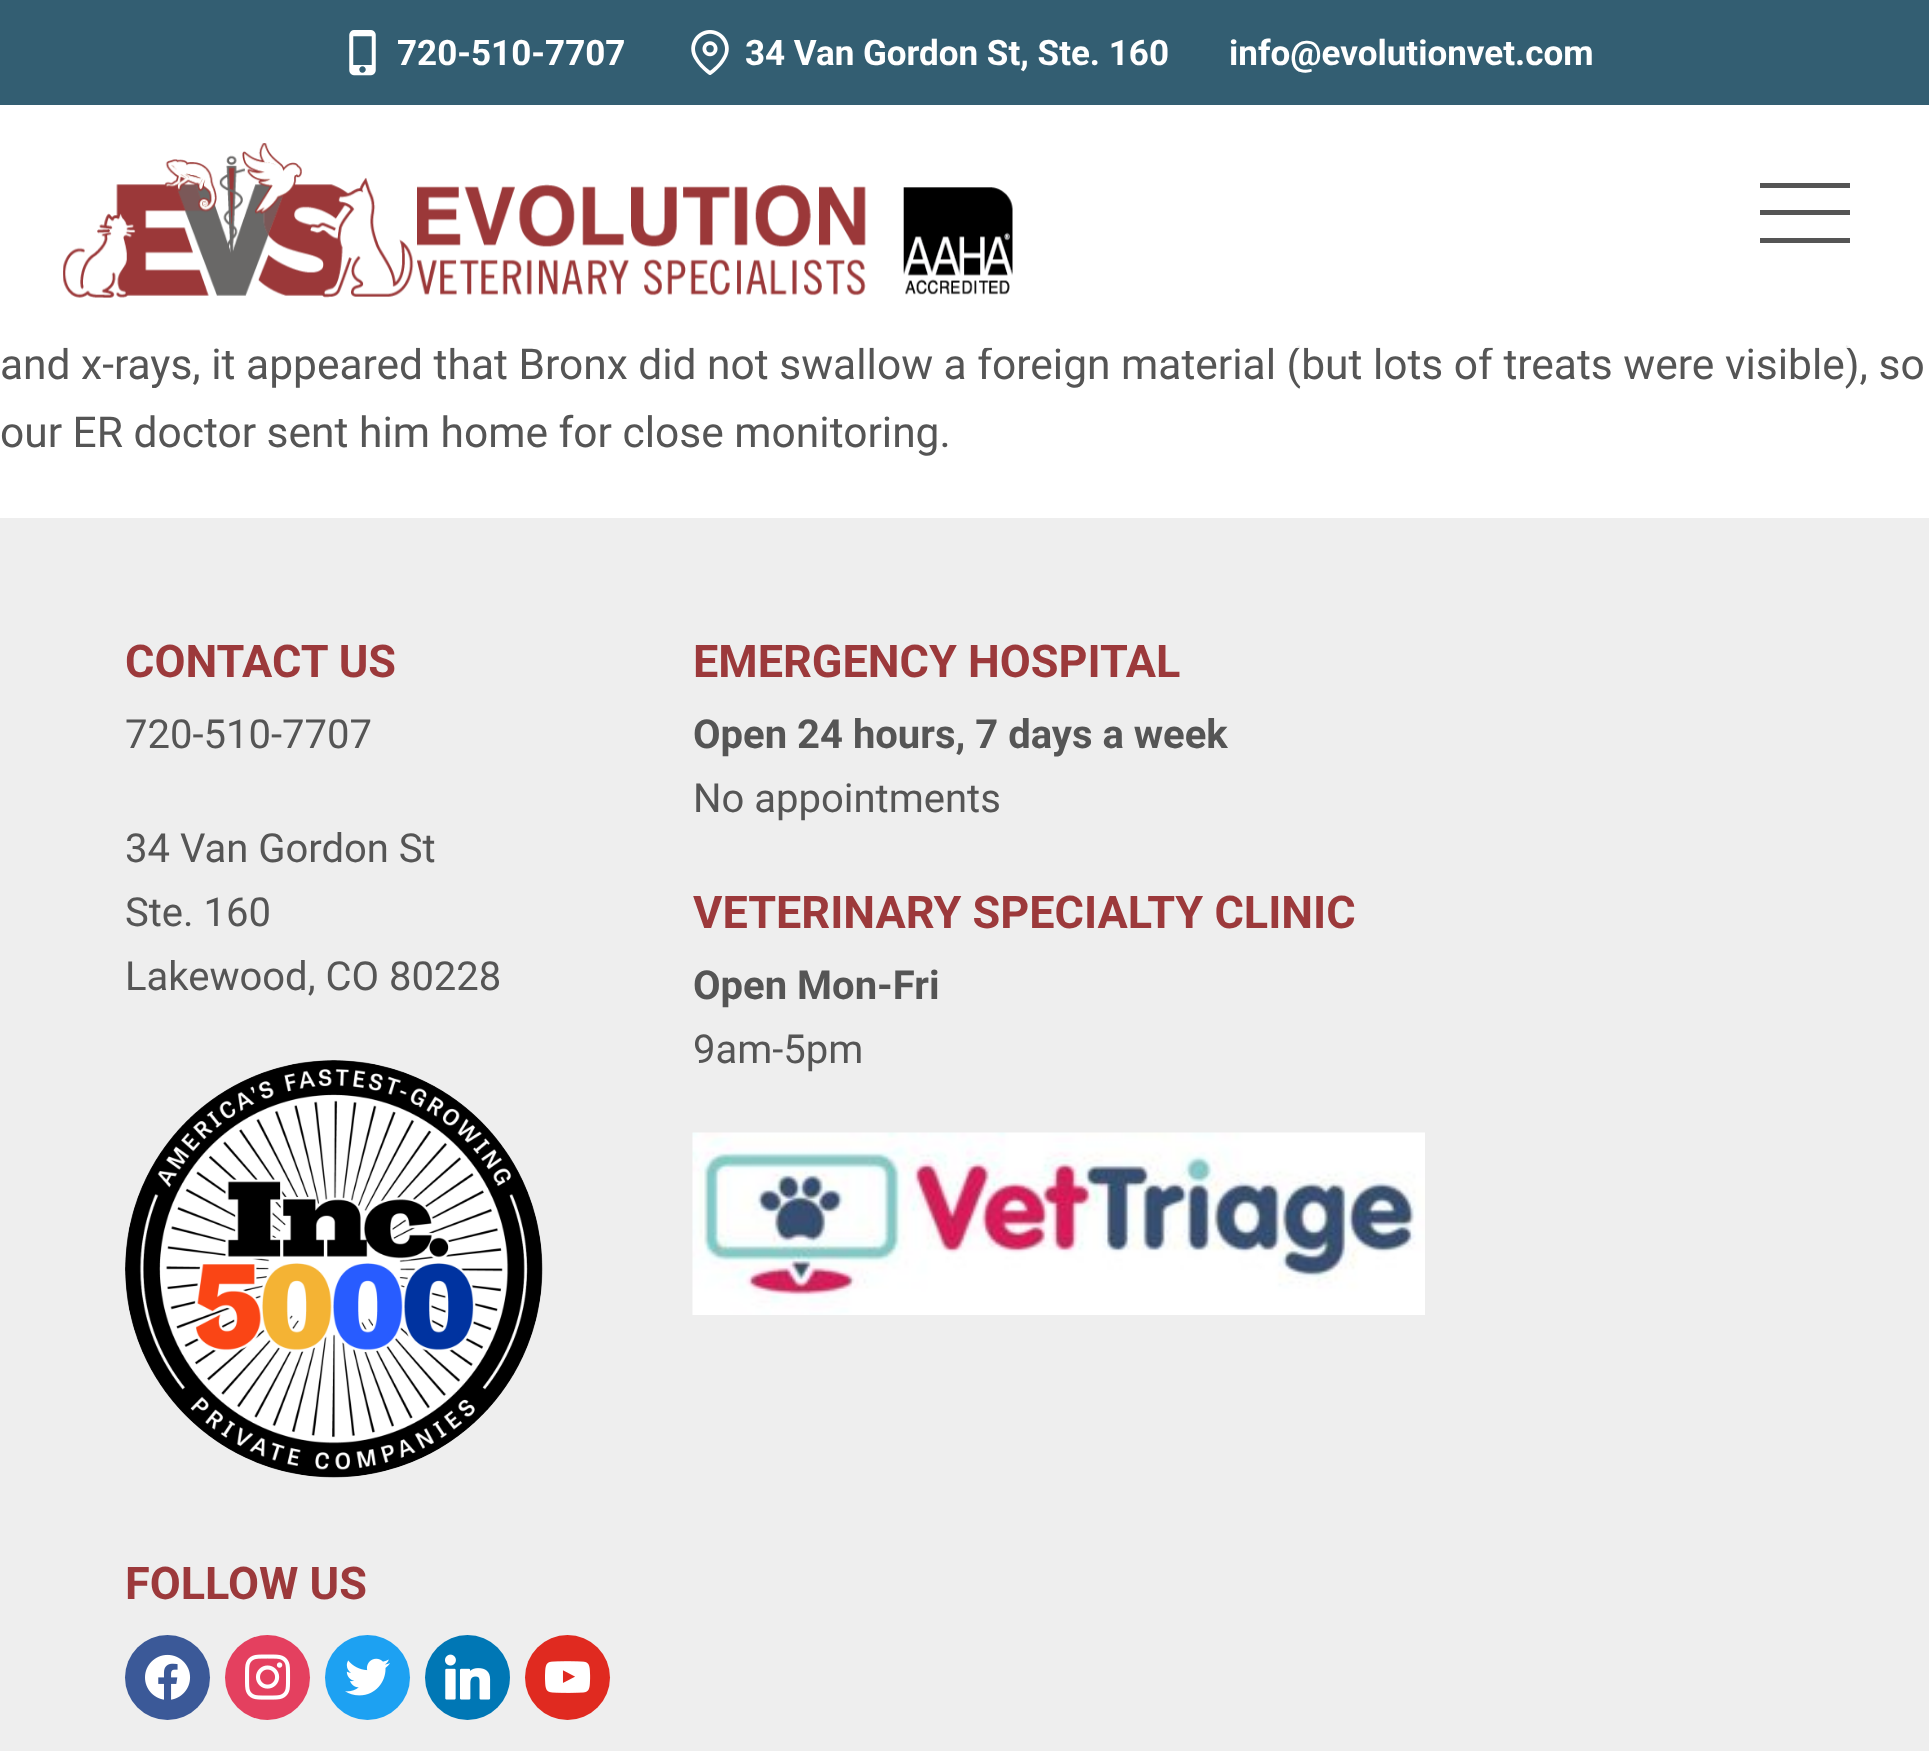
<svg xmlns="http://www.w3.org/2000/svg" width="1929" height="1751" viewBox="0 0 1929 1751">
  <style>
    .t1 { font: bold 35px Roboto; fill: #fff; }
    .t2 { font: 42.5px Roboto; fill: #555; }
    .t3 { font: bold 45px Roboto; fill: #9c393b; }
    .t4 { font: 40px Roboto; fill: #555; }
    .t5 { font: bold 40px Roboto; fill: #555; }
  </style>
  <rect width="100%" height="100%" fill="#fff"/>
  <rect x="0" y="0" width="1929" height="105" fill="#335e72"/>
  <image x="349" y="30" width="27" height="46" href="images/1.png"/>
  <text x="397" y="65" class="t1">720-510-7707</text>
  <image x="691" y="30" width="38" height="45" href="images/2.png"/>
  <text x="745" y="65" class="t1">34 Van Gordon St, Ste. 160</text>
  <text x="1229" y="65" class="t1">info@evolutionvet.com</text>
  <text x="0" y="379" class="t2">and x-rays, it appeared that Bronx did not swallow a foreign material (but lots of treats were visible), so</text>
  <rect x="63" y="345" width="1787" height="3" fill="#ffffffe6"/>
  <image x="63" y="143" width="950" height="155" href="images/3.png"/>
  <rect x="1760" y="183" width="90" height="5" fill="#555"/>
  <rect x="1760" y="210" width="90" height="5" fill="#555"/>
  <rect x="1760" y="238" width="90" height="5" fill="#555"/>
  <text x="0" y="447" class="t2">our ER doctor sent him home for close monitoring.</text>
  <rect x="0" y="518" width="1929" height="1233" fill="#eee"/>
  <text x="125" y="677" class="t3">CONTACT US</text>
  <text x="125" y="748" class="t4">720-510-7707</text>
  <text x="125" y="862" class="t4">34 Van Gordon St</text>
  <text x="125" y="926" class="t4">Ste. 160</text>
  <text x="125" y="990" class="t4">Lakewood, CO 80228</text>
  <image x="125" y="1060" width="418" height="418" href="images/4.png"/>
  <text x="693" y="677" class="t3">EMERGENCY HOSPITAL</text>
  <text x="693" y="748" class="t5">Open 24 hours, 7 days a week</text>
  <text x="693" y="812" class="t4">No appointments</text>
  <text x="693" y="928" class="t3">VETERINARY SPECIALTY CLINIC</text>
  <text x="693" y="999" class="t5">Open Mon-Fri</text>
  <text x="693" y="1063" class="t4">9am-5pm</text>
  <image x="692" y="1132" width="733" height="183" href="images/5.png"/>
  <text x="125" y="1599" class="t3">FOLLOW US</text>
  <circle cx="167.5" cy="1677.5" r="42.5" fill="#3b5998"/>
  <image x="145" y="1654" width="46" height="46" href="images/6.png"/>
  <circle cx="267.5" cy="1677.5" r="42.5" fill="#e4405f"/>
  <image x="245" y="1654" width="46" height="46" href="images/7.png"/>
  <circle cx="367.5" cy="1677.5" r="42.5" fill="#1da1f2"/>
  <image x="345" y="1658" width="45" height="38" href="images/8.png"/>
  <circle cx="467.5" cy="1677.5" r="42.5" fill="#0077b5"/>
  <image x="445" y="1654" width="46" height="46" href="images/9.png"/>
  <circle cx="567.5" cy="1677.5" r="42.5" fill="#e02a20"/>
  <image x="545" y="1661" width="46" height="32" href="images/10.png"/>
</svg>
